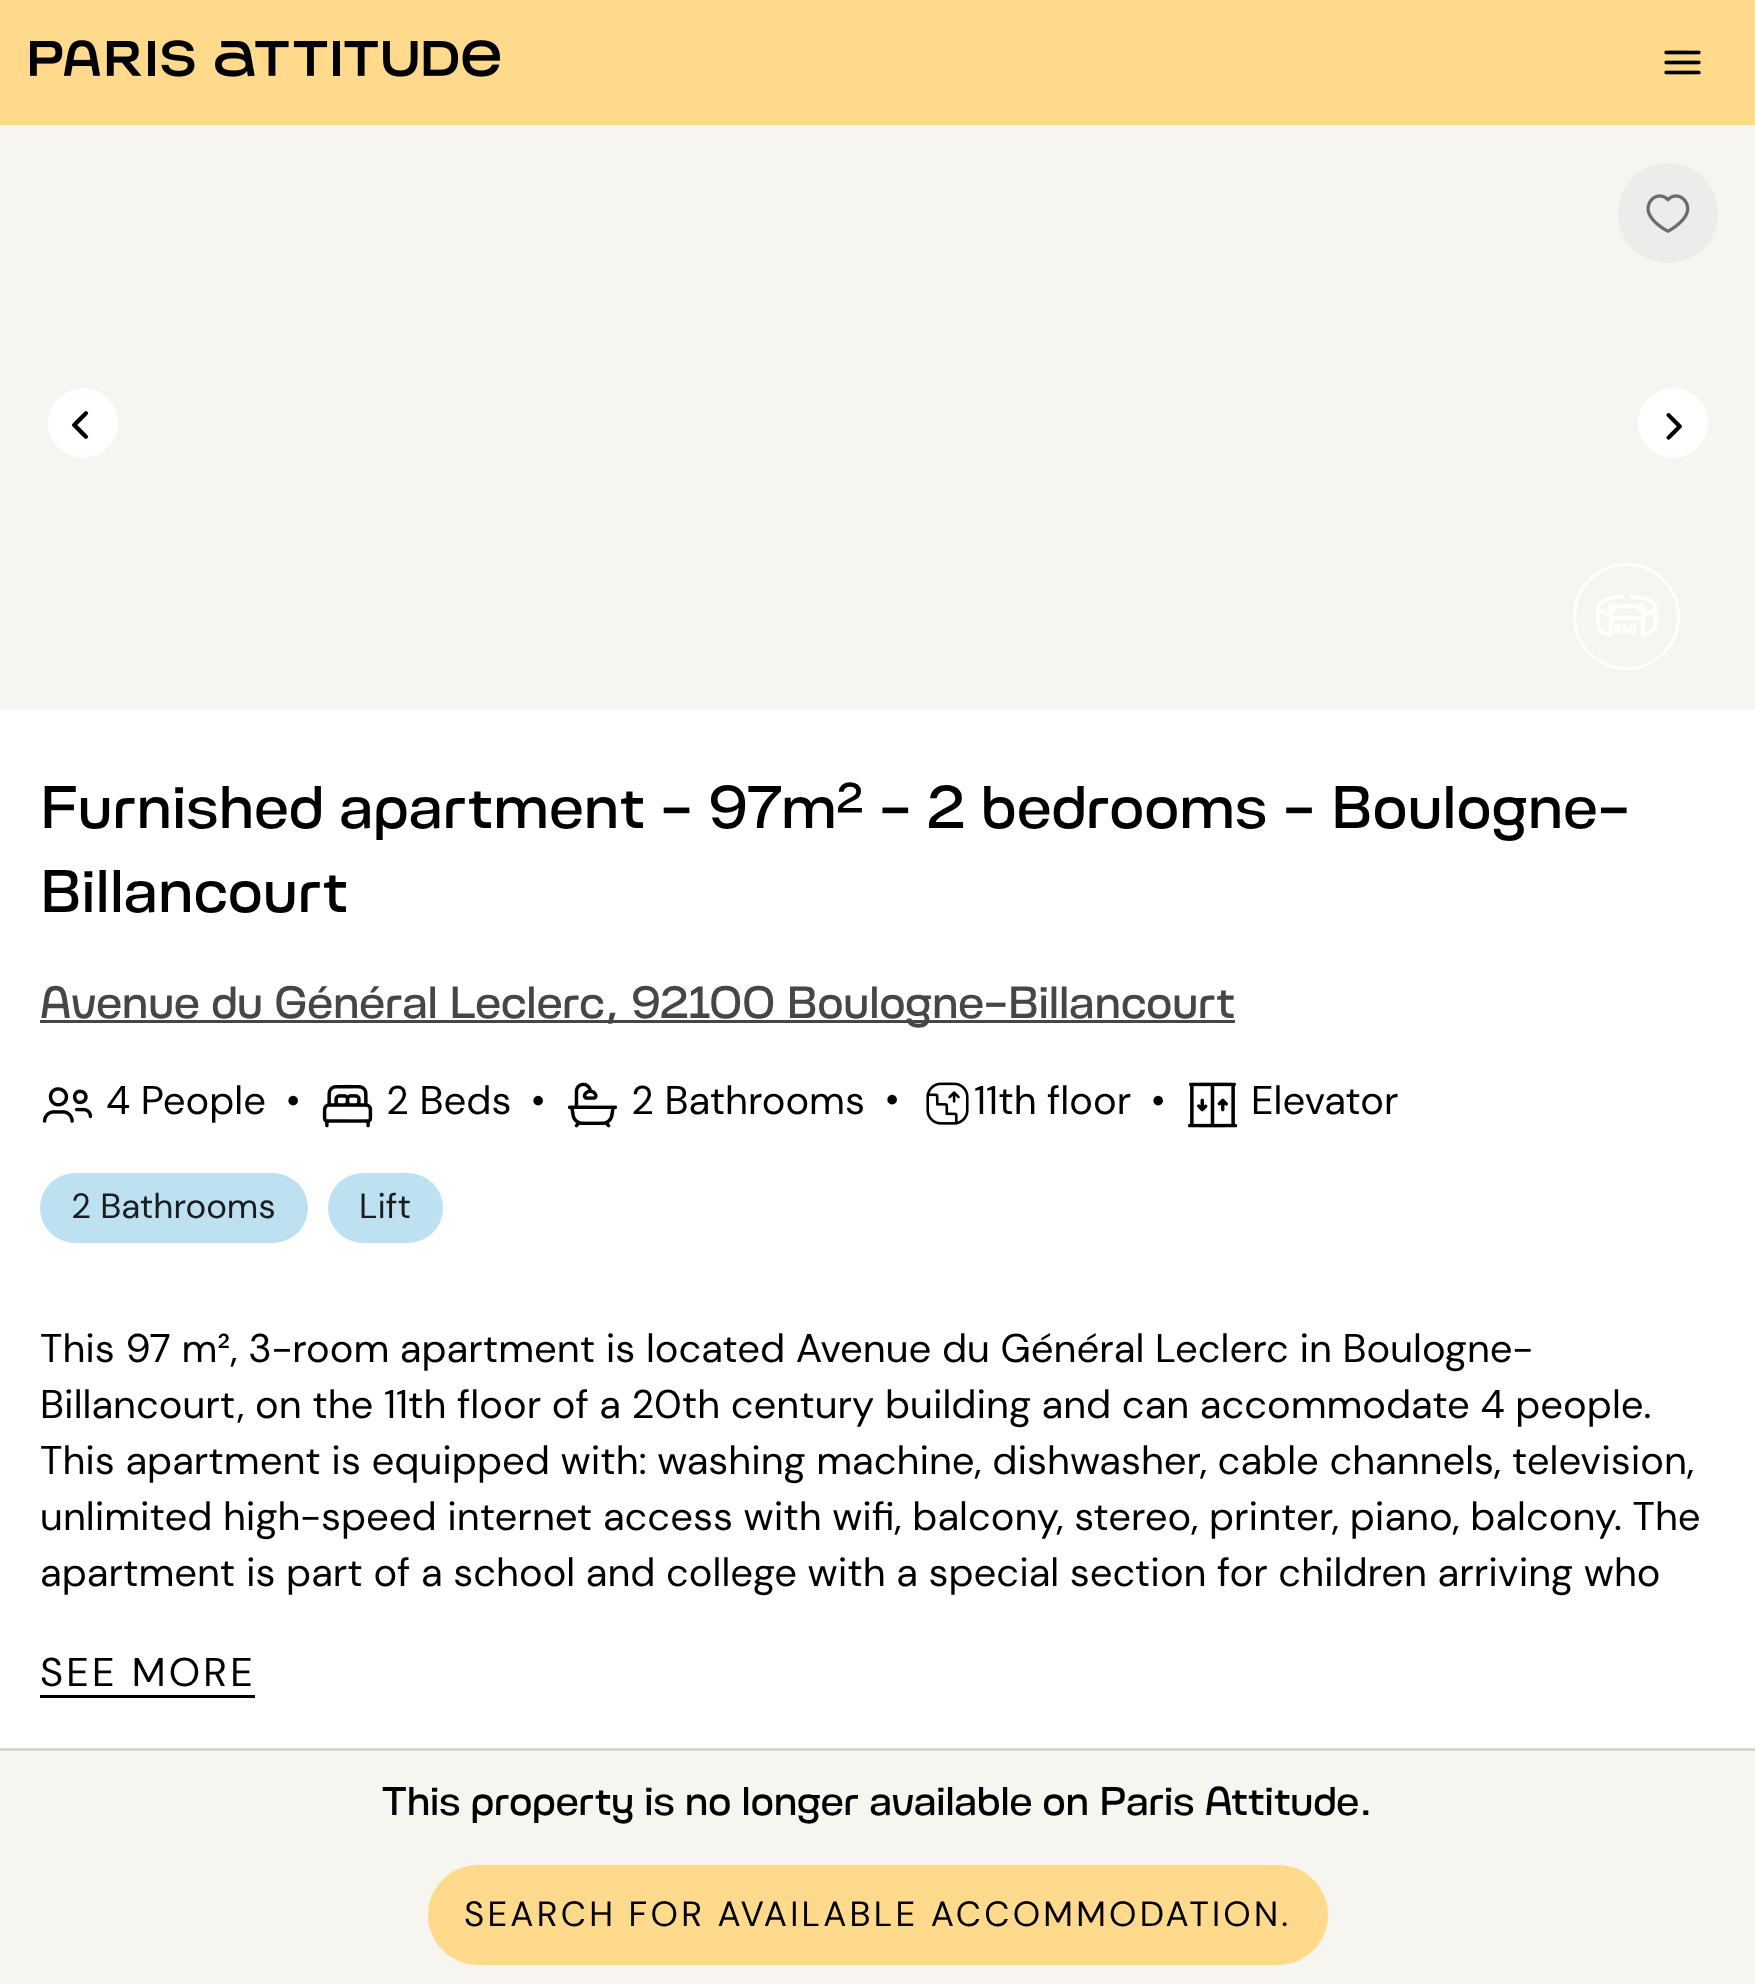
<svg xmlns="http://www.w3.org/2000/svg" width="1755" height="1984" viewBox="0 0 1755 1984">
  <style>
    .t1 { font: 60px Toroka; letter-spacing: 0.45px; fill: #000; }
    .t2 { font: 45px Toroka; fill: #464646; }
    .t3 { font: 40px DM Sans; fill: #000; }
    .t4 { font: 35px DM Sans; fill: #191d1f; }
    .t5 { font: 40px DM Sans; letter-spacing: 3.2px; fill: #000; }
    .t6 { font: 40px Toroka; fill: #000; }
    .t7 { font: 35px DM Sans; letter-spacing: 3.2px; fill: #000; }
  </style>
  <rect width="100%" height="100%" fill="#fff"/>
  <rect x="0" y="0" width="1755" height="125" fill="#ffda8c"/>
  <image x="30" y="40" width="470" height="37" href="images/1.png"/>
  <image x="1664" y="50" width="37" height="25" href="images/2.png"/>
  <rect x="0" y="125" width="1755" height="585" fill="#f6f5ef"/>
  <circle cx="83" cy="423" r="35" fill="#fff"/>
  <image x="71" y="411" width="18" height="28" href="images/3.png"/>
  <circle cx="1673" cy="423" r="35" fill="#fff"/>
  <image x="1666" y="413" width="16" height="27" href="images/4.png"/>
  <circle cx="1668" cy="213" r="50" fill="#edecea"/>
  <image x="1646" y="194" width="44" height="39" href="images/5.png"/>
  <circle cx="1626.5" cy="616.5" r="52" fill="none" stroke="#fff" stroke-width="3"/>
  <image x="1596" y="594" width="62" height="43" href="images/6.png"/>
  <text x="40" y="828" class="t1">Furnished apartment - 97m² - 2 bedrooms - Boulogne-</text>
  <text x="40" y="912" class="t1">Billancourt</text>
  <rect x="40" y="1020" width="1195" height="3" fill="#464646"/>
  <text x="40" y="1018" class="t2">Avenue du Général Leclerc, 92100 Boulogne-Billancourt</text>
  <image x="42" y="1087" width="51" height="36" href="images/7.png"/>
  <text x="106" y="1114" class="t3">4 People</text>
  <text x="286" y="1114" class="t3">•</text>
  <image x="322" y="1084" width="51" height="44" href="images/8.png"/>
  <text x="386" y="1114" class="t3">2 Beds</text>
  <text x="531" y="1114" class="t3">•</text>
  <image x="567" y="1082" width="51" height="46" href="images/9.png"/>
  <text x="631" y="1114" class="t3">2 Bathrooms</text>
  <text x="885" y="1113" class="t3">•</text>
  <image x="926" y="1082" width="43" height="43" href="images/10.png"/>
  <text x="974" y="1114" class="t3">11th floor</text>
  <text x="1151" y="1114" class="t3">•</text>
  <image x="1187" y="1082" width="51" height="46" href="images/11.png"/>
  <text x="1251" y="1114" class="t3">Elevator</text>
  <rect x="40" y="1173" width="268" height="70" rx="35" fill="#bde1f1"/>
  <text x="71" y="1218" class="t4">2 Bathrooms</text>
  <rect x="328" y="1173" width="115" height="70" rx="35" fill="#bde1f1"/>
  <text x="359" y="1218" class="t4">Lift</text>
  <text x="40" y="1362" class="t3">This 97 m², 3-room apartment is located Avenue du Général Leclerc in Boulogne-</text>
  <text x="40" y="1418" class="t3">Billancourt, on the 11th floor of a 20th century building and can accommodate 4 people.</text>
  <text x="40" y="1474" class="t3">This apartment is equipped with: washing machine, dishwasher, cable channels, television,</text>
  <text x="40" y="1530" class="t3">unlimited high-speed internet access with wifi, balcony, stereo, printer, piano, balcony. The</text>
  <text x="40" y="1586" class="t3">apartment is part of a school and college with a special section for children arriving who</text>
  <text x="40" y="1686" class="t5">SEE MORE</text>
  <rect x="40" y="1695" width="215" height="3" fill="#000"/>
  <rect x="0" y="1751" width="1755" height="233" fill="#f6f5ef"/>
  <rect x="0" y="1748" width="1755" height="3" fill="#d7d4cf"/>
  <text x="382" y="1815" class="t6">This property is no longer available on Paris Attitude.</text>
  <rect x="428" y="1865" width="900" height="100" rx="50" fill="#ffda8c"/>
  <text x="464" y="1926" class="t7">SEARCH FOR AVAILABLE ACCOMMODATION.</text>
</svg>
